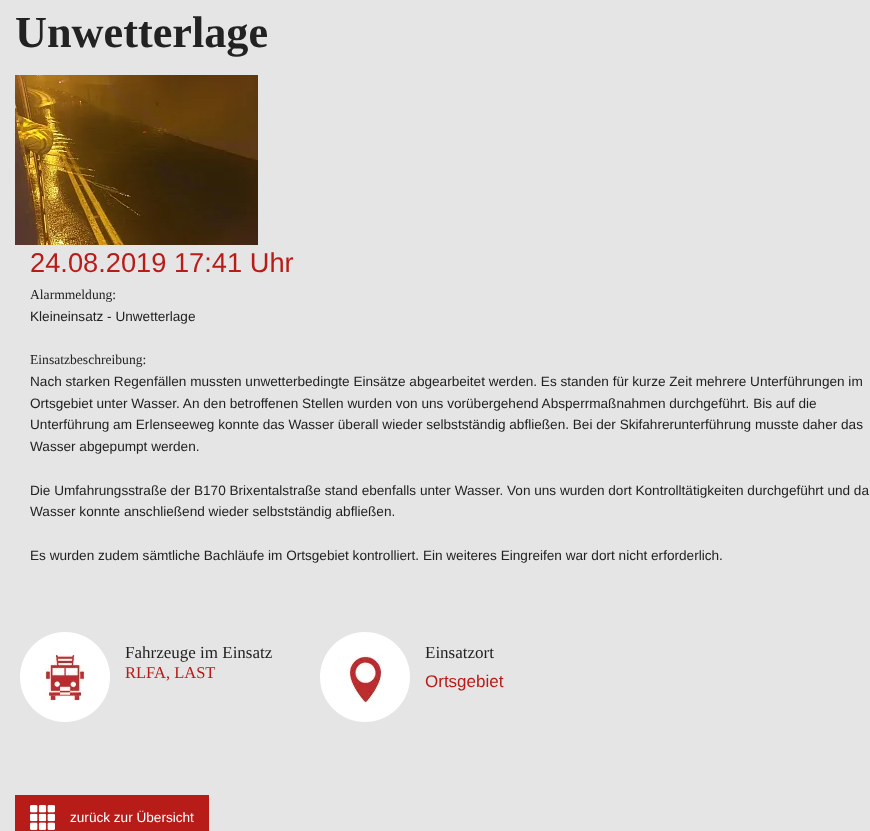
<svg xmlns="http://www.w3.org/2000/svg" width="870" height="831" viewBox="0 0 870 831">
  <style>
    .t1 { font: bold 44.25px Liberation Serif; fill: #222; }
    .t2 { font: 27.25px Liberation Sans; fill: #b71c19; }
    .t3 { font: 13.6px Liberation Serif; fill: #222; }
    .t4 { font: 13.6px Liberation Sans; fill: #222; }
    .t5 { font: 17px Liberation Serif; fill: #222; }
    .t6 { font: 16.5px Liberation Serif; fill: #b71c19; }
    .t7 { font: 17px Liberation Sans; fill: #b71c19; }
    .t8 { font: 13.6px Liberation Sans; fill: #fff; }
  </style>
  <rect width="100%" height="100%" fill="#e5e5e5"/>
  <text x="15" y="47" class="t1">Unwetterlage</text>
  <image x="15" y="75" width="243" height="170" href="images/1.png"/>
  <text x="30" y="272" class="t2">24.08.2019 17:41 Uhr</text>
  <text x="30" y="299" class="t3">Alarmmeldung:</text>
  <text x="30" y="321" class="t4">Kleineinsatz - Unwetterlage</text>
  <text x="30" y="364" class="t3">Einsatzbeschreibung:</text>
  <text x="30" y="386" class="t4">Nach starken Regenfällen mussten unwetterbedingte Einsätze abgearbeitet werden. Es standen für kurze Zeit mehrere Unterführungen im</text>
  <text x="30" y="408" class="t4">Ortsgebiet unter Wasser. An den betroffenen Stellen wurden von uns vorübergehend Absperrmaßnahmen durchgeführt. Bis auf die</text>
  <text x="30" y="429" class="t4">Unterführung am Erlenseeweg konnte das Wasser überall wieder selbstständig abfließen. Bei der Skifahrerunterführung musste daher das</text>
  <text x="30" y="451" class="t4">Wasser abgepumpt werden.</text>
  <text x="30" y="495" class="t4">Die Umfahrungsstraße der B170 Brixentalstraße stand ebenfalls unter Wasser. Von uns wurden dort Kontrolltätigkeiten durchgeführt und da</text>
  <text x="30" y="516" class="t4">Wasser konnte anschließend wieder selbstständig abfließen.</text>
  <text x="30" y="560" class="t4">Es wurden zudem sämtliche Bachläufe im Ortsgebiet kontrolliert. Ein weiteres Eingreifen war dort nicht erforderlich.</text>
  <image x="20" y="632" width="90" height="90" href="images/2.png"/>
  <text x="125" y="658" class="t5">Fahrzeuge im Einsatz</text>
  <text x="125" y="678" class="t6">RLFA, LAST</text>
  <image x="320" y="632" width="90" height="90" href="images/3.png"/>
  <text x="425" y="658" class="t5">Einsatzort</text>
  <text x="425" y="687" class="t7">Ortsgebiet</text>
  <rect x="15" y="795" width="194" height="36" fill="#b71c19"/>
  <image x="30" y="805" width="25" height="25" href="images/4.png"/>
  <text x="70" y="822" class="t8">zurück zur Übersicht</text>
</svg>
